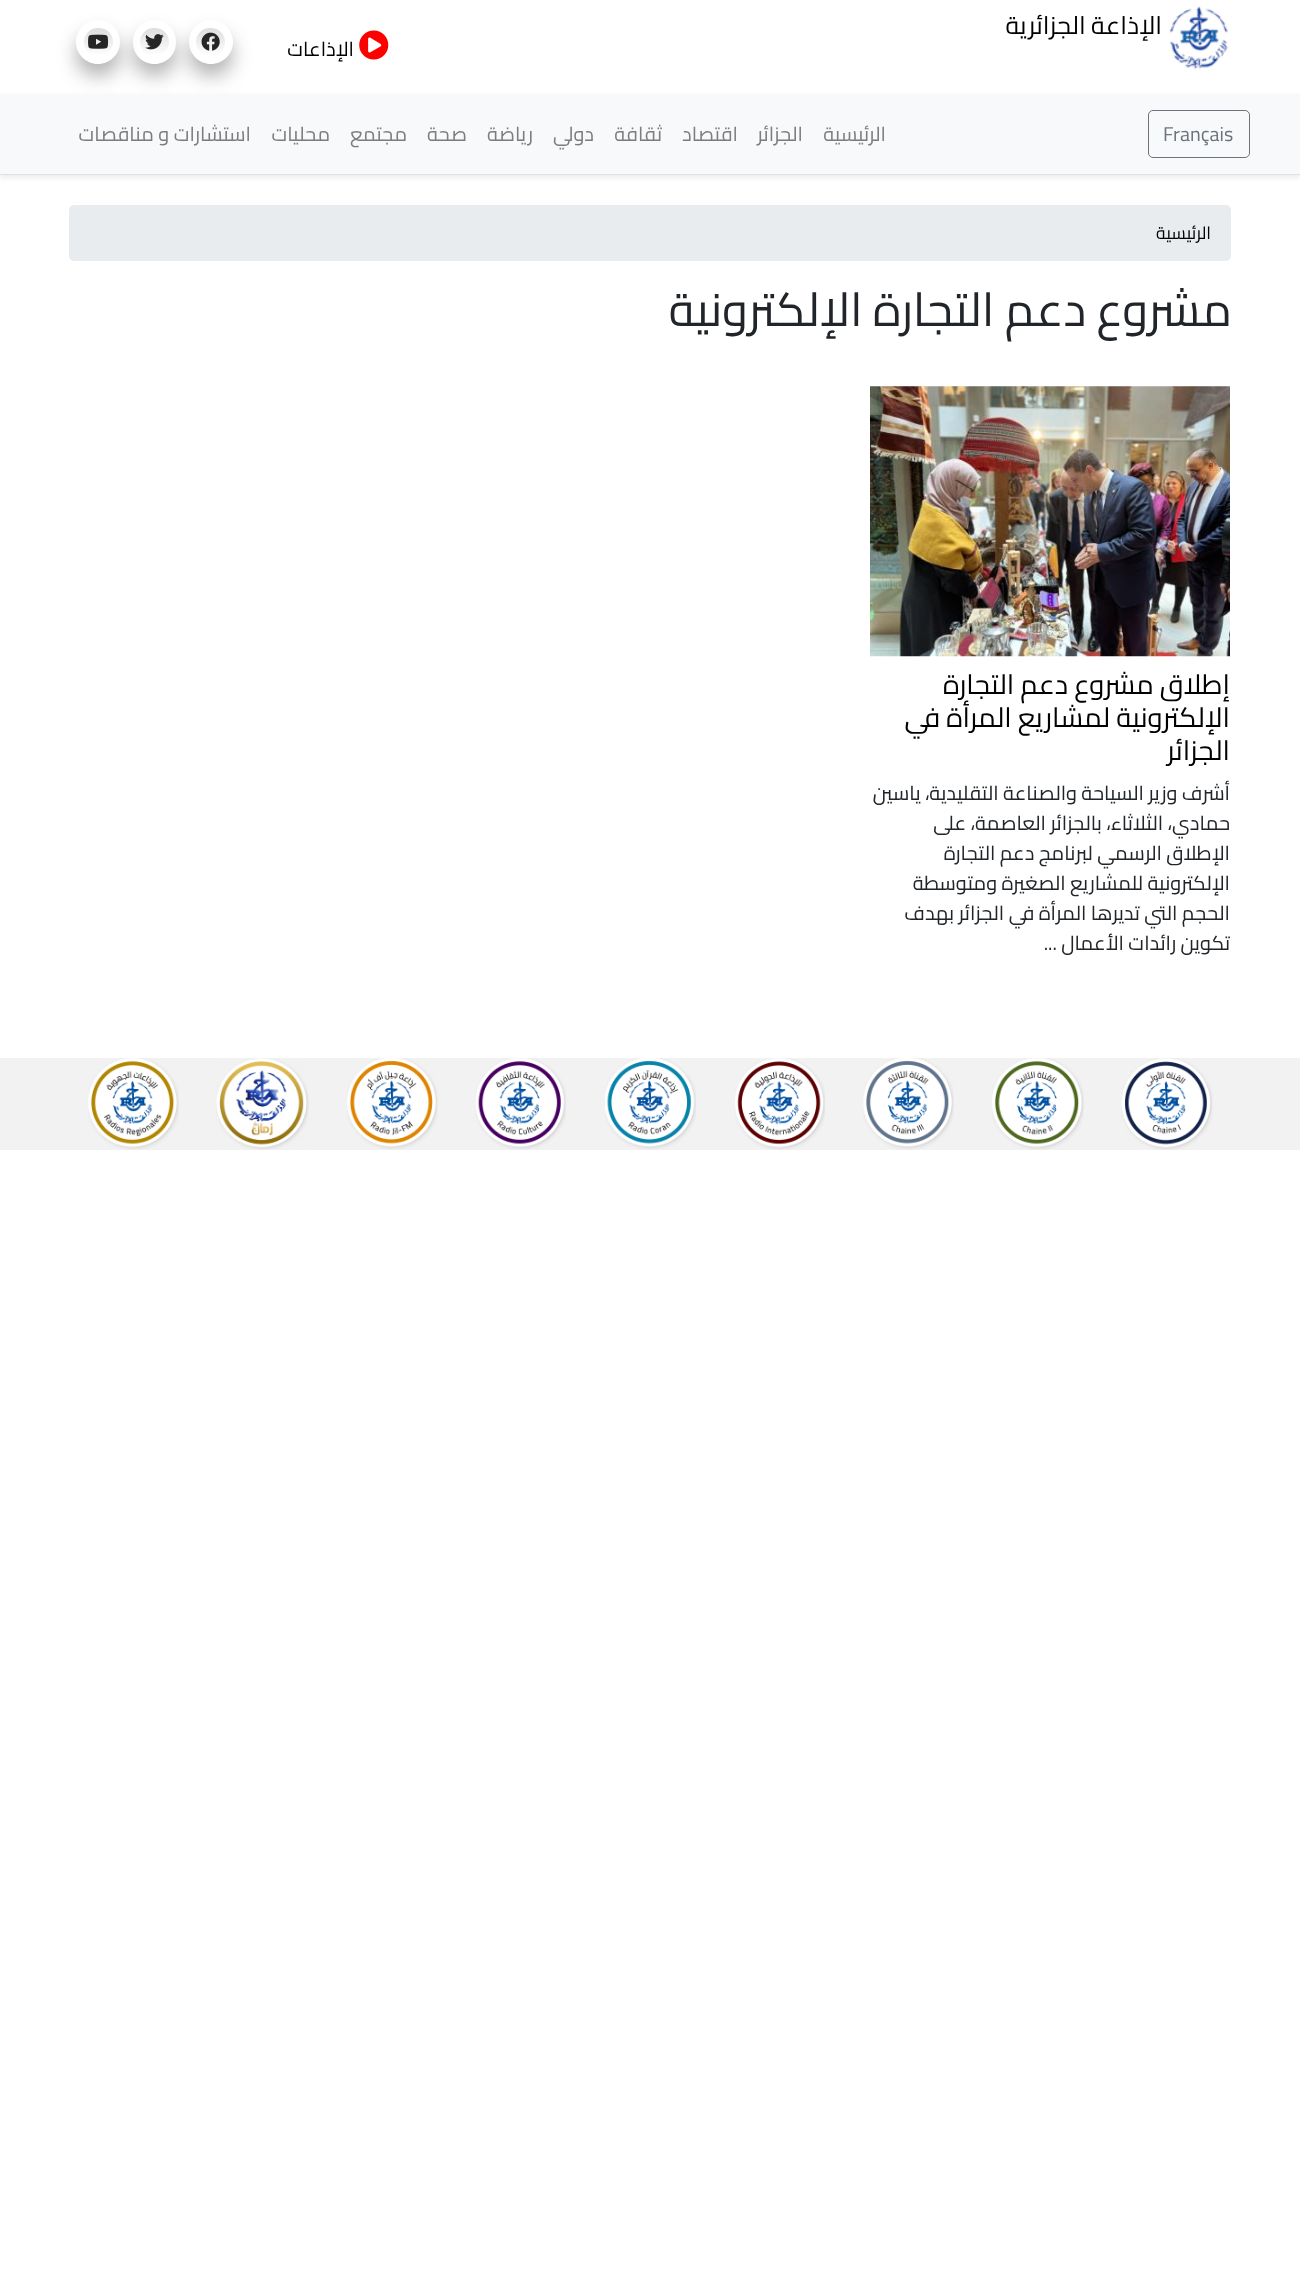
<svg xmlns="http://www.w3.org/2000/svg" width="1300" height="2289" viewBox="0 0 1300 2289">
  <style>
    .t1 { font: 25px Cairo; direction: rtl; fill: #010101; }
    .t2 { font: 20px Cairo; direction: rtl; fill: #010101; }
    .t3 { font: 20px Cairo; fill: #6c757d; }
    .t4 { font: 20px Cairo; direction: rtl; fill: #7c7d7d; }
    .t5 { font: 17.5px Cairo; direction: rtl; fill: #010101; }
    .t6 { font: 47px Cairo; direction: rtl; fill: #212529; }
    .t7 { font: 27.6px Cairo; direction: rtl; fill: #010101; }
    .t8 { font: 20px Cairo; direction: rtl; fill: #212529; }
  </style>
  <defs>
    <clipPath id="clip1"><path d="M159 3H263V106H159ZM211 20C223 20 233 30 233 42C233 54 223 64 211 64C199 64 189 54 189 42C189 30 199 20 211 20Z" clip-rule="evenodd"/></clipPath>
    <linearGradient id="g1" gradientUnits="userSpaceOnUse" x1="211" y1="56" x2="211" y2="28"><stop offset="0" stop-color="#fff"/><stop offset="1" stop-color="#ddd"/></linearGradient>
    <clipPath id="clip2"><path d="M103 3H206V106H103ZM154.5 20C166.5 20 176 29.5 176 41.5V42.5C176 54.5 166.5 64 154.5 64C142.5 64 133 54.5 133 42.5V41.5C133 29.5 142.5 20 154.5 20Z" clip-rule="evenodd"/></clipPath>
    <linearGradient id="g2" gradientUnits="userSpaceOnUse" x1="154" y1="56" x2="154" y2="28"><stop offset="0" stop-color="#fff"/><stop offset="1" stop-color="#ddd"/></linearGradient>
    <clipPath id="clip3"><path d="M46 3H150V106H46ZM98 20C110 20 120 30 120 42C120 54 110 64 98 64C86 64 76 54 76 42C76 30 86 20 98 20Z" clip-rule="evenodd"/></clipPath>
    <linearGradient id="g3" gradientUnits="userSpaceOnUse" x1="98" y1="56" x2="98" y2="28"><stop offset="0" stop-color="#fff"/><stop offset="1" stop-color="#ddd"/></linearGradient>
  </defs>
  <rect width="100%" height="100%" fill="#fff"/>
  <image x="1169" y="6" width="59" height="63" href="images/1.png"/>
  <text x="1162" y="34" class="t1">الإذاعة الجزائرية</text>
  <image x="359" y="30" width="30" height="30" href="images/2.png"/>
  <text x="354" y="56" class="t2">الإذاعات</text>
  <g clip-path="url(#clip1)">
    <rect x="189" y="33" width="44" height="43" rx="21.5" fill="#0000004d" filter="blur(9.5px)"/>
  </g>
  <rect x="196" y="28" width="29" height="28" rx="14" fill="url(#g1)"/>
  <image x="201" y="32" width="19" height="19" href="images/3.png"/>
  <g clip-path="url(#clip2)">
    <rect x="133" y="33" width="43" height="43" rx="21.5" fill="#0000004d" filter="blur(9.5px)"/>
  </g>
  <rect x="140" y="28" width="29" height="28" rx="14" fill="url(#g2)"/>
  <image x="145" y="34" width="19" height="16" href="images/4.png"/>
  <g clip-path="url(#clip3)">
    <rect x="76" y="33" width="44" height="43" rx="21.5" fill="#0000004d" filter="blur(9.5px)"/>
  </g>
  <rect x="84" y="28" width="29" height="28" rx="14" fill="url(#g3)"/>
  <image x="88" y="34" width="21" height="15" href="images/5.png"/>
  <rect x="0" y="96" width="1300" height="82" fill="#00000012" filter="blur(2.5px)"/>
  <rect x="0" y="94" width="1300" height="80" fill="#f8f9fa"/>
  <rect x="0" y="174" width="1300" height="1" fill="#dee2e6"/>
  <rect x="1148.5" y="110.5" width="101" height="47" rx="4.5" fill="none" stroke="#6c757d"/>
  <text x="1163" y="141" class="t3">Français</text>
  <text x="886" y="141" class="t4">الرئيسية</text>
  <text x="803" y="141" class="t4">الجزائر</text>
  <text x="738" y="141" class="t4">اقتصاد</text>
  <text x="662" y="141" class="t4">ثقافة</text>
  <text x="594" y="141" class="t4">دولي</text>
  <text x="533" y="141" class="t4">رياضة</text>
  <text x="467" y="141" class="t4">صحة</text>
  <text x="407" y="141" class="t4">مجتمع</text>
  <text x="330" y="141" class="t4">محليات</text>
  <text x="251" y="141" class="t4">استشارات و مناقصات</text>
  <rect x="69" y="205" width="1162" height="56" rx="5" fill="#e9ecef"/>
  <text x="1211" y="239" class="t5">الرئيسية</text>
  <text x="1232" y="326" class="t6">مشروع دعم التجارة الإلكترونية</text>
  <image x="870" y="386" width="360" height="271" href="images/6.png"/>
  <text x="1230" y="694" class="t7">إطلاق مشروع دعم التجارة</text>
  <text x="1230" y="727" class="t7">الإلكترونية لمشاريع المرأة في</text>
  <text x="1230" y="760" class="t7">الجزائر</text>
  <text x="1230" y="800" class="t8">أشرف وزير السياحة والصناعة التقليدية، ياسين</text>
  <text x="1230" y="830" class="t8">حمادي، الثلاثاء، بالجزائر العاصمة، على</text>
  <text x="1230" y="860" class="t8">الإطلاق الرسمي لبرنامج دعم التجارة</text>
  <text x="1230" y="890" class="t8">الإلكترونية للمشاريع الصغيرة ومتوسطة</text>
  <text x="1230" y="920" class="t8">الحجم التي تديرها المرأة في الجزائر بهدف</text>
  <text x="1230" y="950" class="t8">تكوين رائدات الأعمال ...</text>
  <rect x="0" y="1058" width="1300" height="92" fill="#f2f2f2"/>
  <image x="1121" y="1058" width="92" height="92" href="images/7.png"/>
  <image x="992" y="1058" width="92" height="92" href="images/8.png"/>
  <image x="863" y="1058" width="91" height="92" href="images/9.png"/>
  <image x="735" y="1058" width="90" height="92" href="images/10.png"/>
  <image x="605" y="1058" width="91" height="92" href="images/11.png"/>
  <image x="475" y="1058" width="91" height="92" href="images/12.png"/>
  <image x="347" y="1058" width="91" height="92" href="images/13.png"/>
  <image x="216" y="1058" width="93" height="92" href="images/14.png"/>
  <image x="88" y="1058" width="91" height="92" href="images/15.png"/>
</svg>
